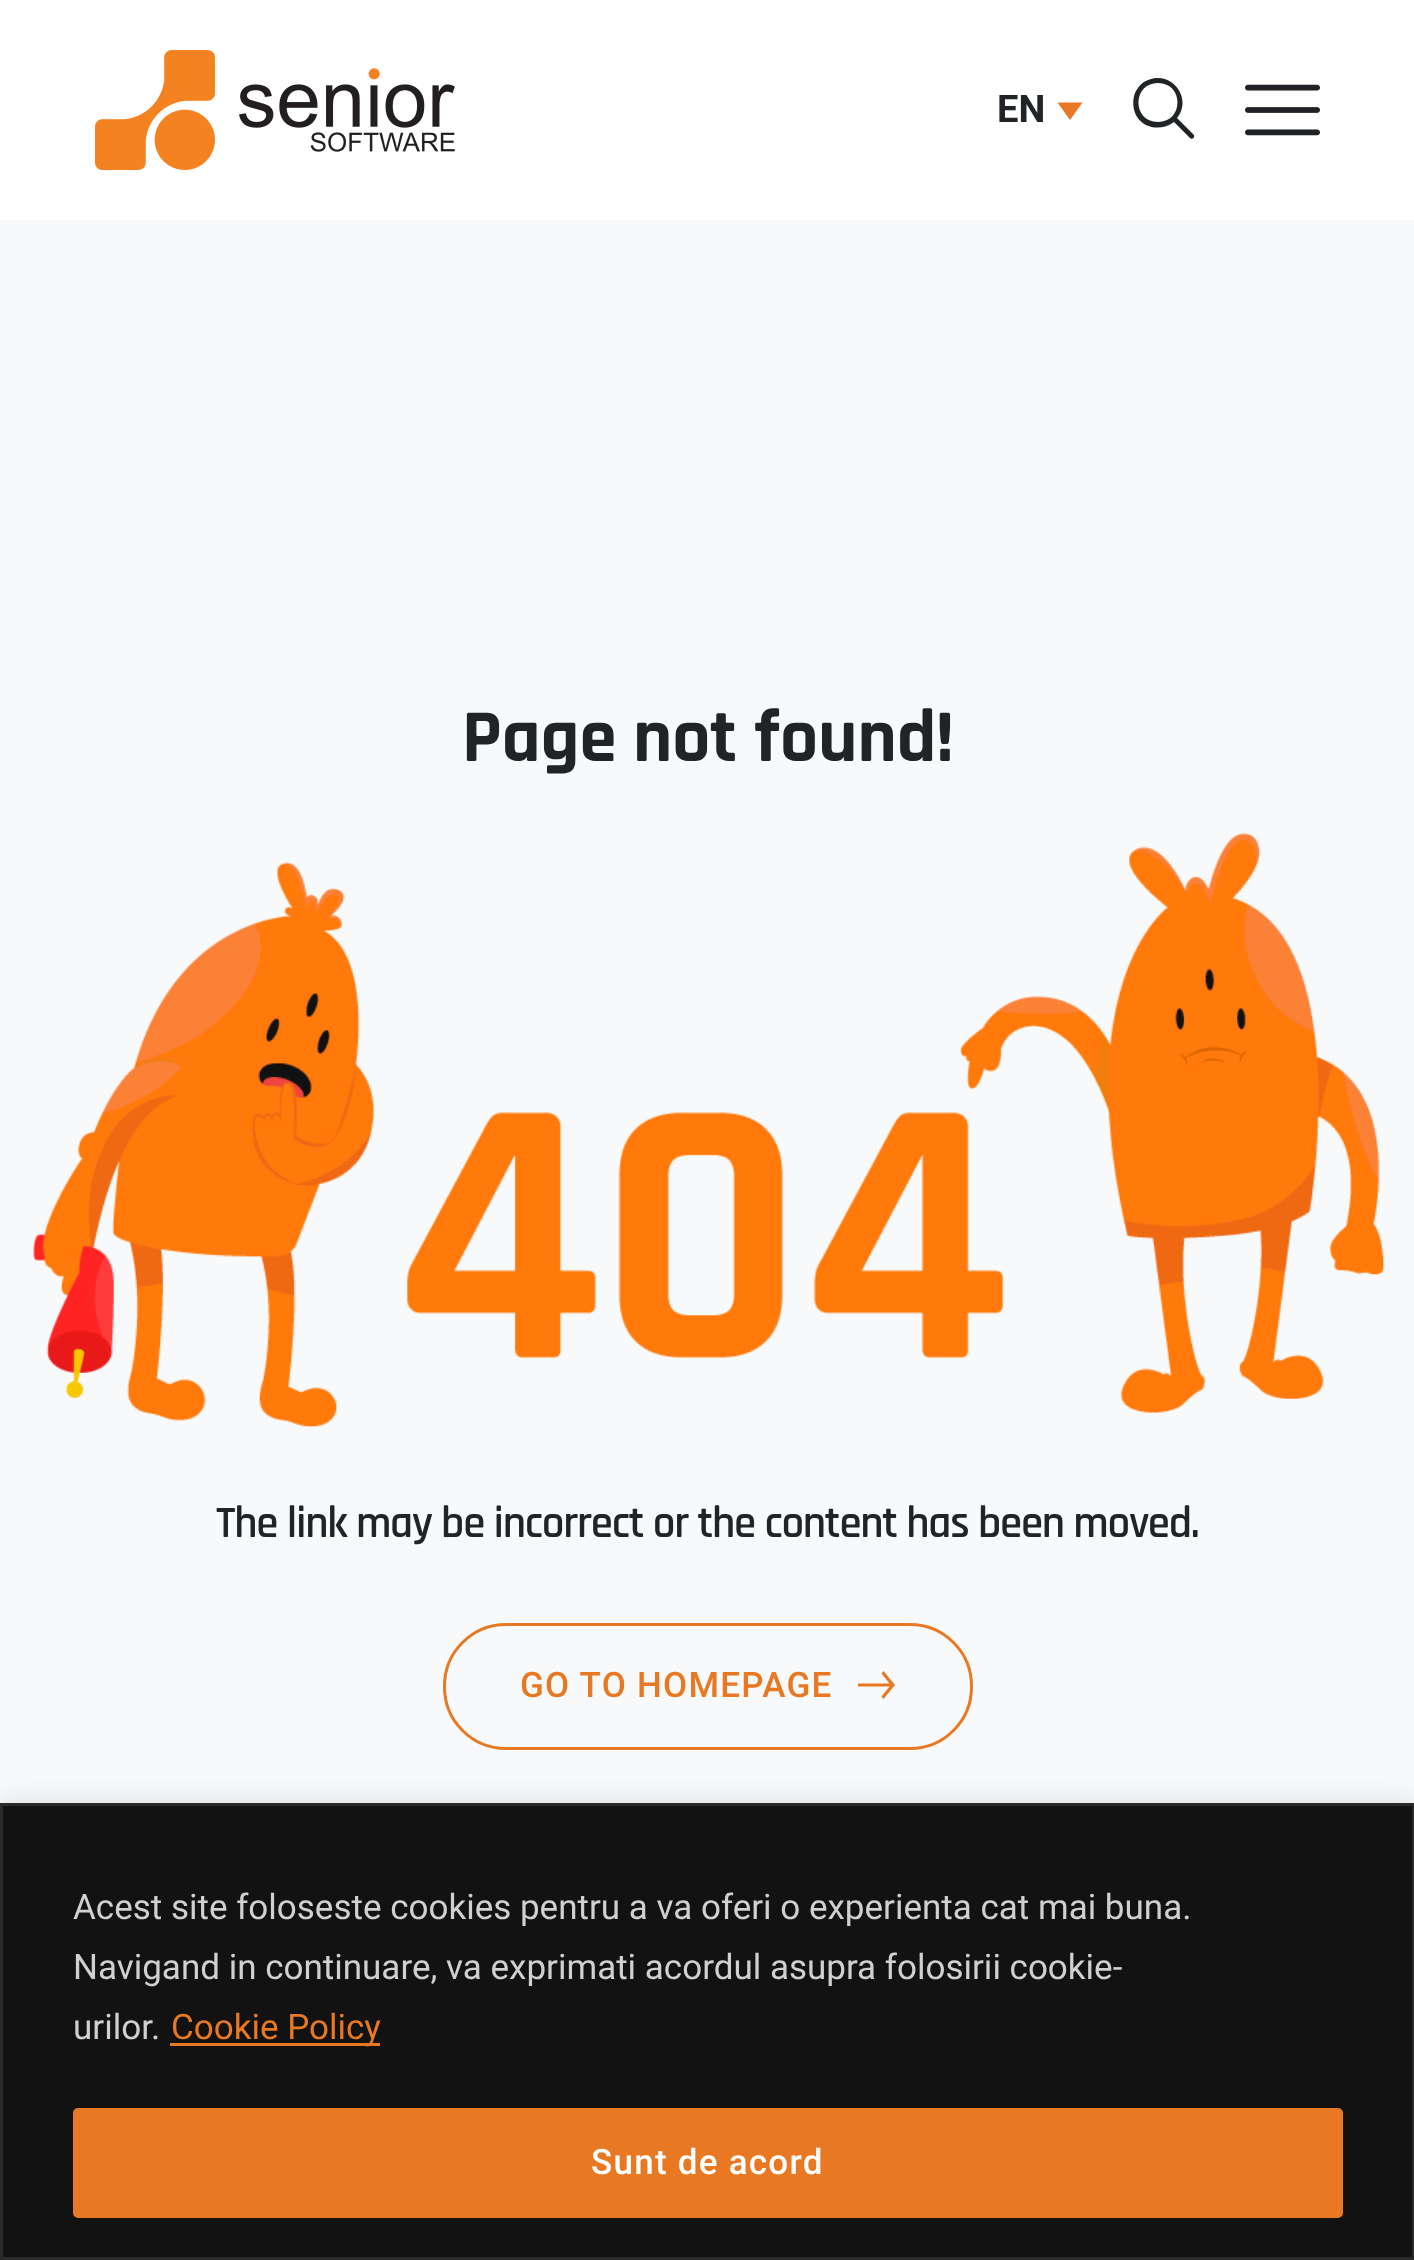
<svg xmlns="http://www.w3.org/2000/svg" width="1414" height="2260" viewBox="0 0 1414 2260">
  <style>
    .t1 { font: bold 38px Roboto; fill: #202426; }
    .t2 { font: bold 75px Rajdhani; fill: #202426; }
    .t3 { font: 600 45px Rajdhani; letter-spacing: -1.25px; fill: #202426; }
    .t4 { font: 500 35px Roboto; letter-spacing: 1.25px; fill: #e87821; }
    .t5 { font: 35px Roboto; fill: #d0d0d0; }
    .t6 { font: 35px Roboto; fill: #e87821; }
    .t7 { font: 500 35px Roboto; letter-spacing: 1.25px; fill: #fff; }
  </style>
  <defs>
    <clipPath id="clip1"><rect x="858" y="1668" width="37" height="35"/></clipPath>
  </defs>
  <rect width="100%" height="100%" fill="#f7f9fa"/>
  <rect x="0" y="0" width="1414" height="220" fill="#fff"/>
  <image x="95" y="50" width="360" height="120" href="images/1.png"/>
  <text x="997" y="122" class="t1">EN</text>
  <path d="M1057.5 102.5H1082.5L1070 120Z" fill="#e87821"/>
  <path d="M1177 118C1193 99 1172 70 1148 80C1142 82 1138 87 1135 93C1132 101 1133 110 1137 117C1145 129 1162 131 1174 122L1190 138C1192 140 1195 138 1194 135ZM1158 122C1132 122 1132 83 1158 83C1184 83 1184 122 1158 122Z" fill="#202426"/>
  <image x="1245" y="84" width="75" height="52" href="images/2.png"/>
  <text x="462" y="761" class="t2">Page not found!</text>
  <image x="33" y="833" width="1351" height="595" href="images/3.png"/>
  <text x="216" y="1537" class="t3">The link may be incorrect or the content has been moved.</text>
  <rect x="444.5" y="1624.5" width="527" height="124" rx="61.5" fill="none" stroke="#e87821" stroke-width="3"/>
  <text x="520" y="1697" class="t4">GO TO HOMEPAGE</text>
  <g clip-path="url(#clip1)">
    <path d="M857.5 1683.5H889.5L881.5 1673.5L883.5 1671L895 1685L883.5 1699L881.5 1696.5L889.5 1686.5H857.5Z" fill="#e87821"/>
  </g>
  <rect x="0" y="1800" width="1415" height="458" fill="#acabab4d" filter="blur(12.5px)"/>
  <rect x="1.5" y="1804.5" width="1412" height="454" fill="#121212" stroke="#2a2a2a" stroke-width="3"/>
  <text x="73" y="1919" class="t5">Acest site foloseste cookies pentru a va oferi o experienta cat mai buna.</text>
  <text x="73" y="1979" class="t5">Navigand in continuare, va exprimati acordul asupra folosirii cookie-</text>
  <text x="73" y="2039" class="t5">urilor.</text>
  <rect x="170" y="2043" width="210" height="3" fill="#e87821"/>
  <text x="171" y="2039" class="t6">Cookie Policy</text>
  <rect x="75.5" y="2110.5" width="1265" height="105" rx="2.5" fill="#e87821" stroke="#e87821" stroke-width="5"/>
  <text x="591" y="2174" class="t7">Sunt de acord</text>
</svg>
